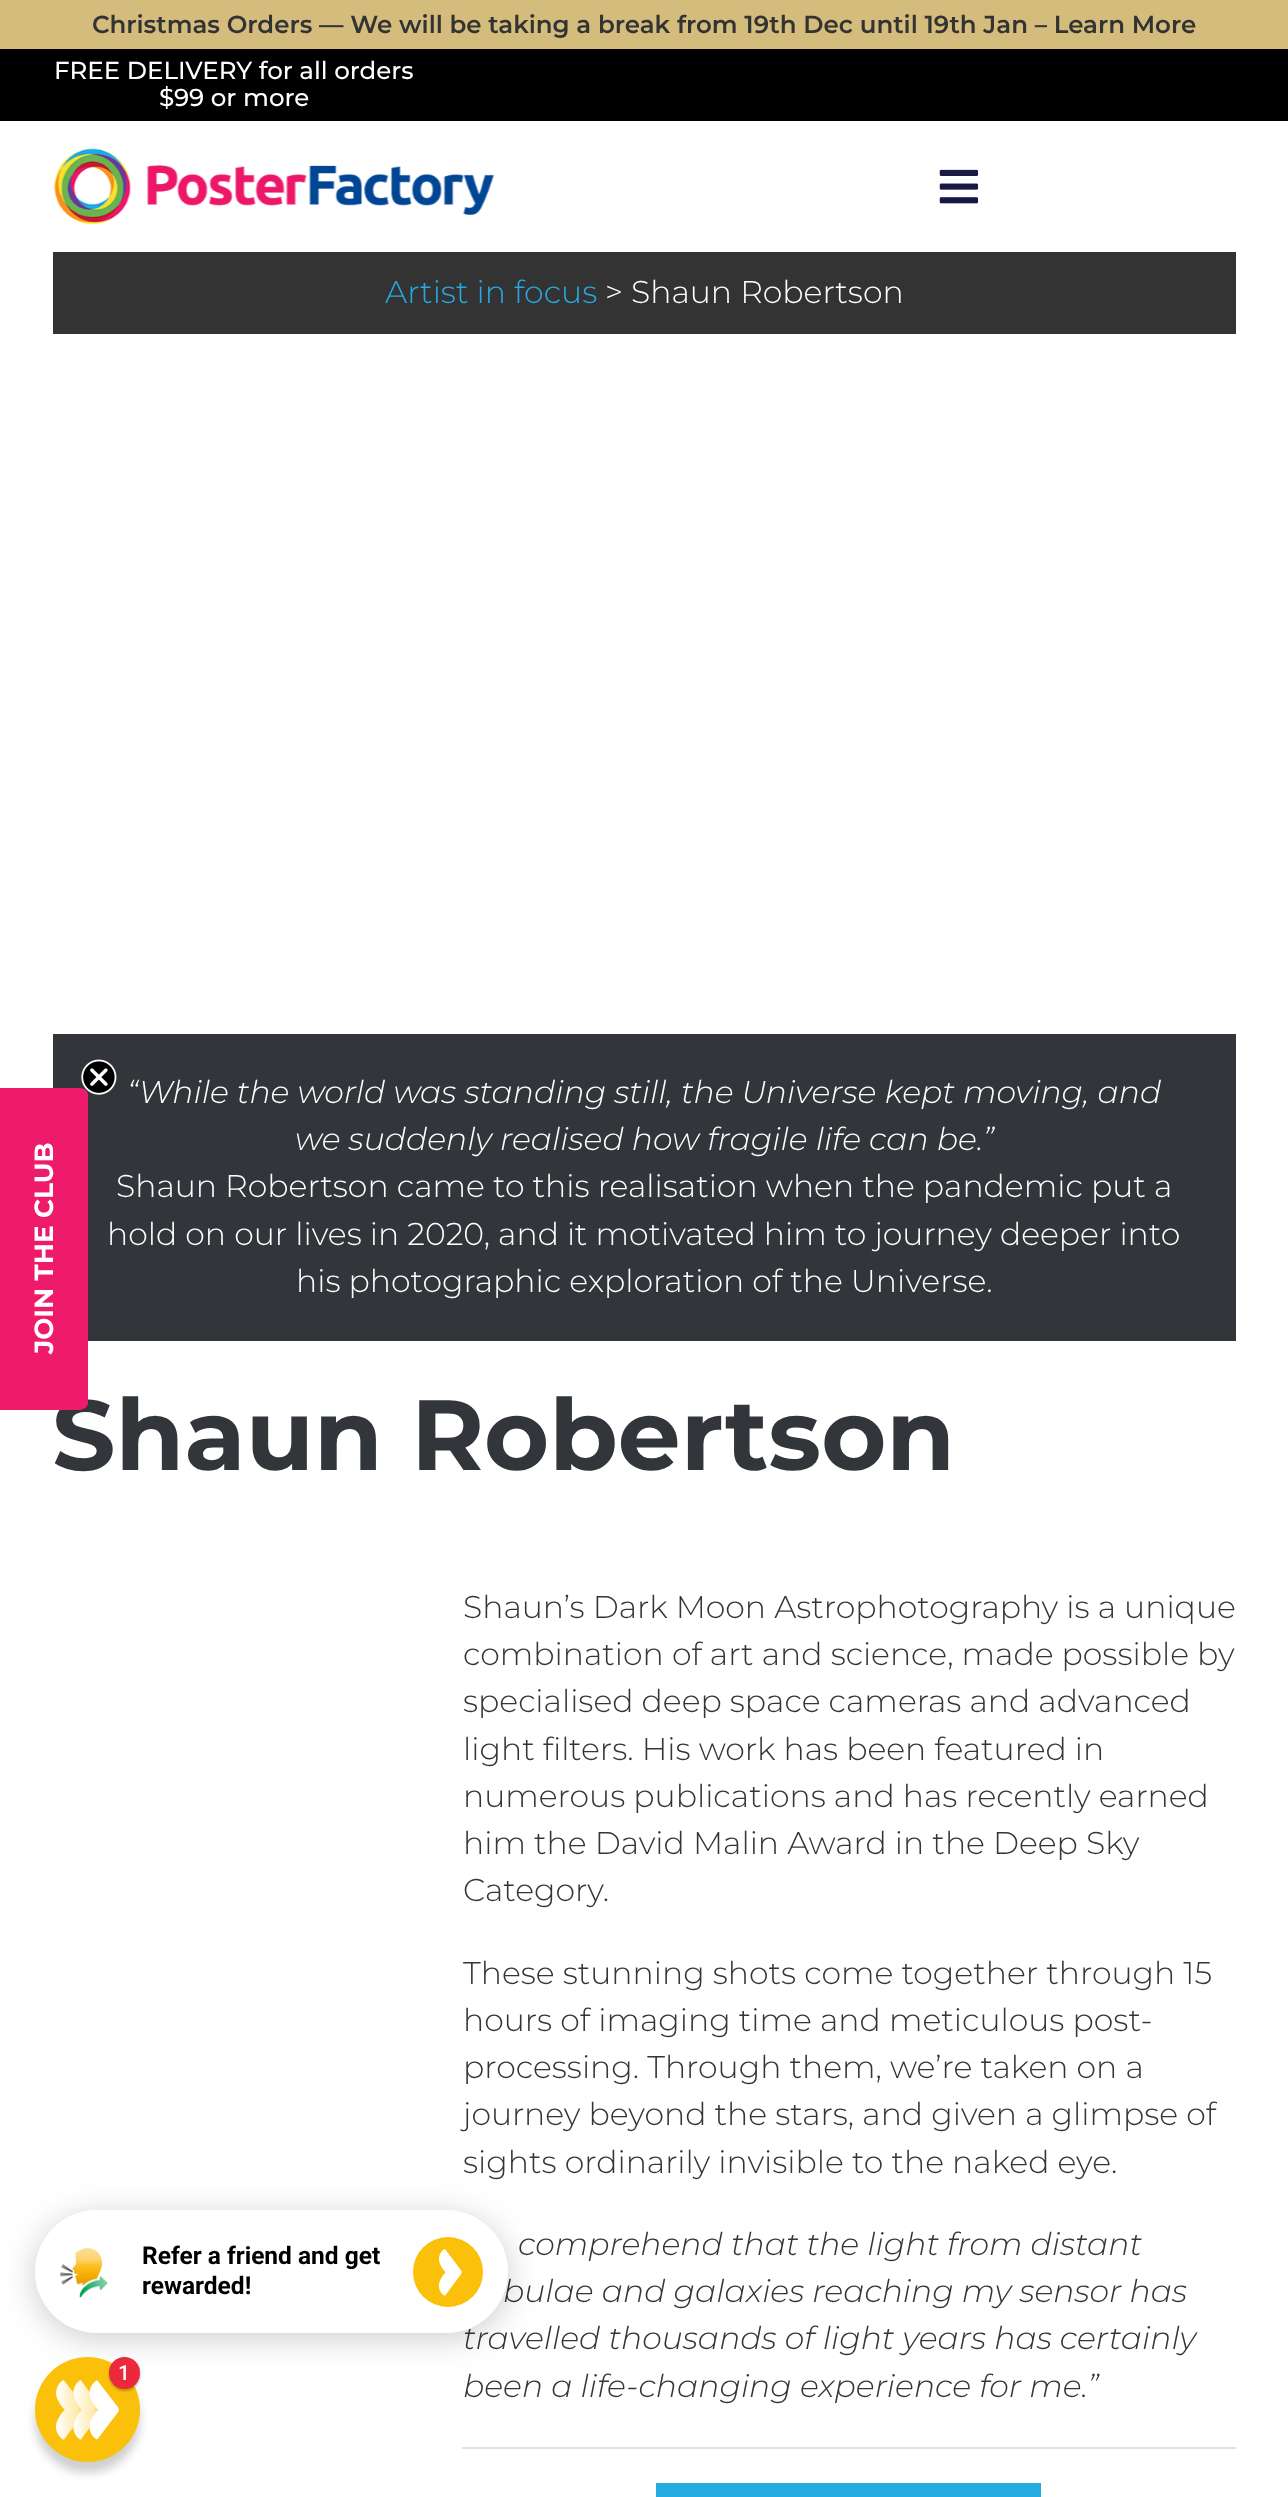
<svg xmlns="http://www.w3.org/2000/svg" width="1288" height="2497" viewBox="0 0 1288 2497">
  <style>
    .t1 { font: bold 99.5px Montserrat; fill: #323539; }
    .t2 { font: bold 26.25px Montserrat; fill: #fff; }
    .t3 { font: 600 24.5px Montserrat; fill: #333; }
    .t4 { font: 500 24.5px Montserrat; fill: #fff; }
    .t5 { font: 300 31.5px Montserrat; fill: #27aae1; }
    .t6 { font: 300 31.5px Montserrat; fill: #fff; }
    .t7 { font: italic 300 31.5px Montserrat; fill: #fff; }
    .t8 { font: 300 31.5px Montserrat; fill: #323539; }
    .t9 { font: italic 300 31.5px Montserrat; fill: #323539; }
    .t10 { font: bold 24.5px Roboto; fill: #000; }
    .t11 { font: 500 21px Roboto; fill: #fff; }
  </style>
  <rect width="100%" height="100%" fill="#fff"/>
  <rect x="53" y="1034" width="1183" height="307" fill="#323539"/>
  <text x="52" y="1470" class="t1">Shaun Robertson</text>
  <path d="M0 1410V1088H80C84 1088 88 1091 88 1095V1403C88 1406 84 1410 80 1410Z" fill="#ed1b6a"/>
  <image x="81" y="1059" width="36" height="36" href="images/1.png"/>
  <text x="53" y="1354" transform="rotate(-90 53 1354)" class="t2">JOIN THE CLUB</text>
  <rect x="0" y="0" width="1288" height="49" fill="#d4bc7c"/>
  <text x="92" y="33" class="t3">Christmas Orders — We will be taking a break from 19th Dec until 19th Jan – Learn More</text>
  <rect x="0" y="49" width="1288" height="72" fill="#000"/>
  <text x="54" y="79" class="t4">FREE DELIVERY for all orders</text>
  <text x="159" y="106" class="t4">$99 or more</text>
  <image x="53" y="148" width="442" height="77" href="images/2.png"/>
  <image x="939" y="169" width="40" height="35" href="images/3.png"/>
  <rect x="53" y="252" width="1183" height="82" fill="#333"/>
  <text x="385" y="303" class="t5">Artist in focus</text>
  <text x="605" y="303" class="t6">&gt; Shaun Robertson</text>
  <text x="127" y="1103" class="t7">“While the world was standing still, the Universe kept moving, and</text>
  <text x="295" y="1150" class="t7">we suddenly realised how fragile life can be.”</text>
  <text x="116" y="1197" class="t6">Shaun Robertson came to this realisation when the pandemic put a</text>
  <text x="107" y="1245" class="t6">hold on our lives in 2020, and it motivated him to journey deeper into</text>
  <text x="296" y="1292" class="t6">his photographic exploration of the Universe.</text>
  <text x="463" y="1618" class="t8">Shaun’s Dark Moon Astrophotography is a unique</text>
  <text x="463" y="1665" class="t8">combination of art and science, made possible by</text>
  <text x="463" y="1712" class="t8">specialised deep space cameras and advanced</text>
  <text x="463" y="1760" class="t8">light filters. His work has been featured in</text>
  <text x="463" y="1807" class="t8">numerous publications and has recently earned</text>
  <text x="463" y="1854" class="t8">him the David Malin Award in the Deep Sky</text>
  <text x="463" y="1901" class="t8">Category.</text>
  <text x="463" y="1984" class="t8">These stunning shots come together through 15</text>
  <text x="463" y="2031" class="t8">hours of imaging time and meticulous post-</text>
  <text x="463" y="2078" class="t8">processing. Through them, we’re taken on a</text>
  <text x="463" y="2125" class="t8">journey beyond the stars, and given a glimpse of</text>
  <text x="463" y="2173" class="t8">sights ordinarily invisible to the naked eye.</text>
  <text x="518" y="2255" class="t9">comprehend that the light from distant</text>
  <text x="503" y="2302" class="t9">bulae and galaxies reaching my sensor has</text>
  <text x="463" y="2349" class="t9">travelled thousands of light years has certainly</text>
  <text x="463" y="2397" class="t9">been a life-changing experience for me.”</text>
  <rect x="462" y="2447" width="774" height="2" fill="#e0dede"/>
  <rect x="656" y="2483" width="385" height="14" fill="#27aae1"/>
  <rect x="35" y="2216" width="473" height="122" rx="61" fill="#00000033" filter="blur(16px)"/>
  <rect x="35" y="2210" width="473" height="123" rx="61.5" fill="#fff"/>
  <image x="60" y="2248" width="48" height="50" href="images/4.png"/>
  <text x="142" y="2264" class="t10">Refer a friend and get</text>
  <text x="142" y="2294" class="t10">rewarded!</text>
  <circle cx="448" cy="2272" r="35" fill="#fbc00a"/>
  <image x="438" y="2249" width="24" height="47" href="images/5.png"/>
  <rect x="35" y="2368" width="105" height="105" rx="52.5" fill="#00000030" filter="blur(5px)"/>
  <circle cx="87.5" cy="2409.5" r="52.5" fill="#fbc00a"/>
  <image x="56" y="2380" width="63" height="60" href="images/6.png"/>
  <rect x="109" y="2359" width="31" height="32" rx="15.5" fill="#00000040" filter="blur(1px)"/>
  <rect x="109" y="2357" width="31" height="32" rx="15.5" fill="#eb293b"/>
  <text x="118" y="2380" class="t11">1</text>
</svg>
